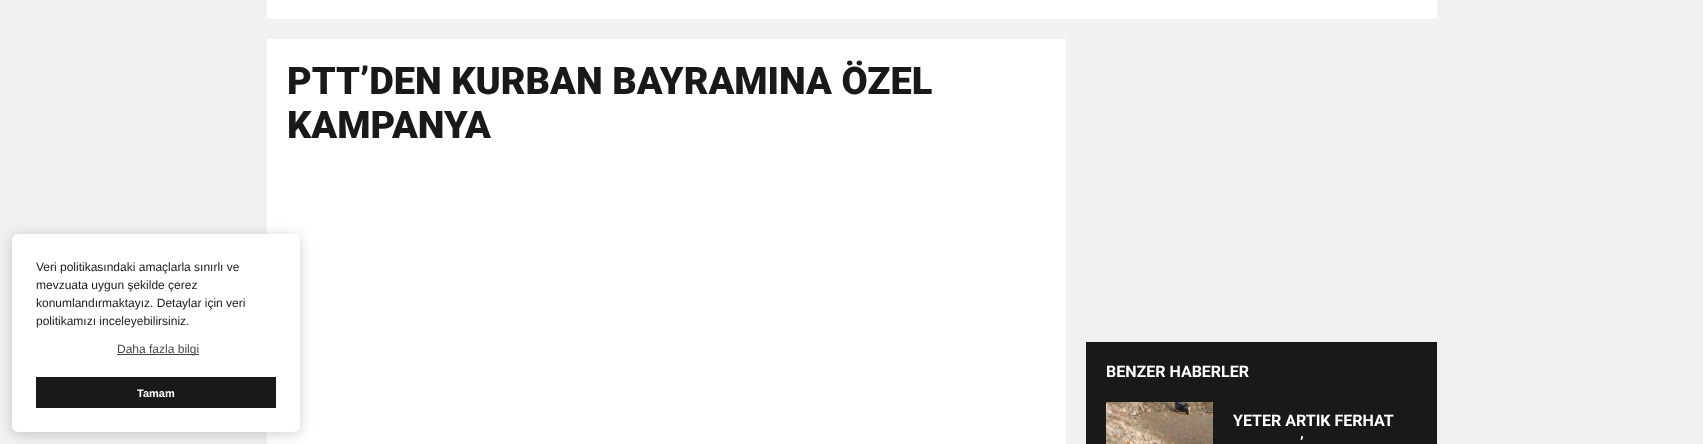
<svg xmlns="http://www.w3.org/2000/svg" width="1703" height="444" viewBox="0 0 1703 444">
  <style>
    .t1 { font: 12px Liberation Sans; fill: #191919; }
    .t2 { font: 12px Liberation Sans; fill: #474747; }
    .t3 { font: bold 11px Liberation Sans; fill: #fff; }
    .t4 { font: 900 38px Roboto; fill: #191919; }
    .t5 { font: bold 16px Roboto; fill: #fff; }
  </style>
  <rect width="100%" height="100%" fill="#f1f1f1"/>
  <rect x="267" y="39" width="799" height="405" fill="#fff"/>
  <rect x="12" y="236" width="288" height="198" rx="6" fill="#00000030" filter="blur(6.5px)"/>
  <rect x="12" y="234" width="288" height="198" rx="6" fill="#fff"/>
  <text x="36" y="271" class="t1">Veri politikasındaki amaçlarla sınırlı ve</text>
  <text x="36" y="289" class="t1">mevzuata uygun şekilde çerez</text>
  <text x="36" y="307" class="t1">konumlandırmaktayız. Detaylar için veri</text>
  <text x="36" y="325" class="t1">politikamızı inceleyebilirsiniz.</text>
  <rect x="117" y="354" width="82" height="1" fill="#474747"/>
  <text x="117" y="353" class="t2">Daha fazla bilgi</text>
  <rect x="36" y="377" width="240" height="31" fill="#191919"/>
  <text x="137" y="397" class="t3">Tamam</text>
  <rect x="267" y="0" width="1170" height="19" fill="#fff"/>
  <text x="287" y="94" class="t4">PTT’DEN KURBAN BAYRAMINA ÖZEL</text>
  <text x="287" y="138" class="t4">KAMPANYA</text>
  <rect x="1086" y="342" width="351" height="102" fill="#191919"/>
  <text x="1106" y="377" class="t5">BENZER HABERLER</text>
  <image x="1106" y="402" width="107" height="42" href="images/1.png"/>
  <text x="1233" y="426" class="t5">YETER ARTIK FERHAT</text>
  <text x="1300" y="448" class="t5">’</text>
</svg>
